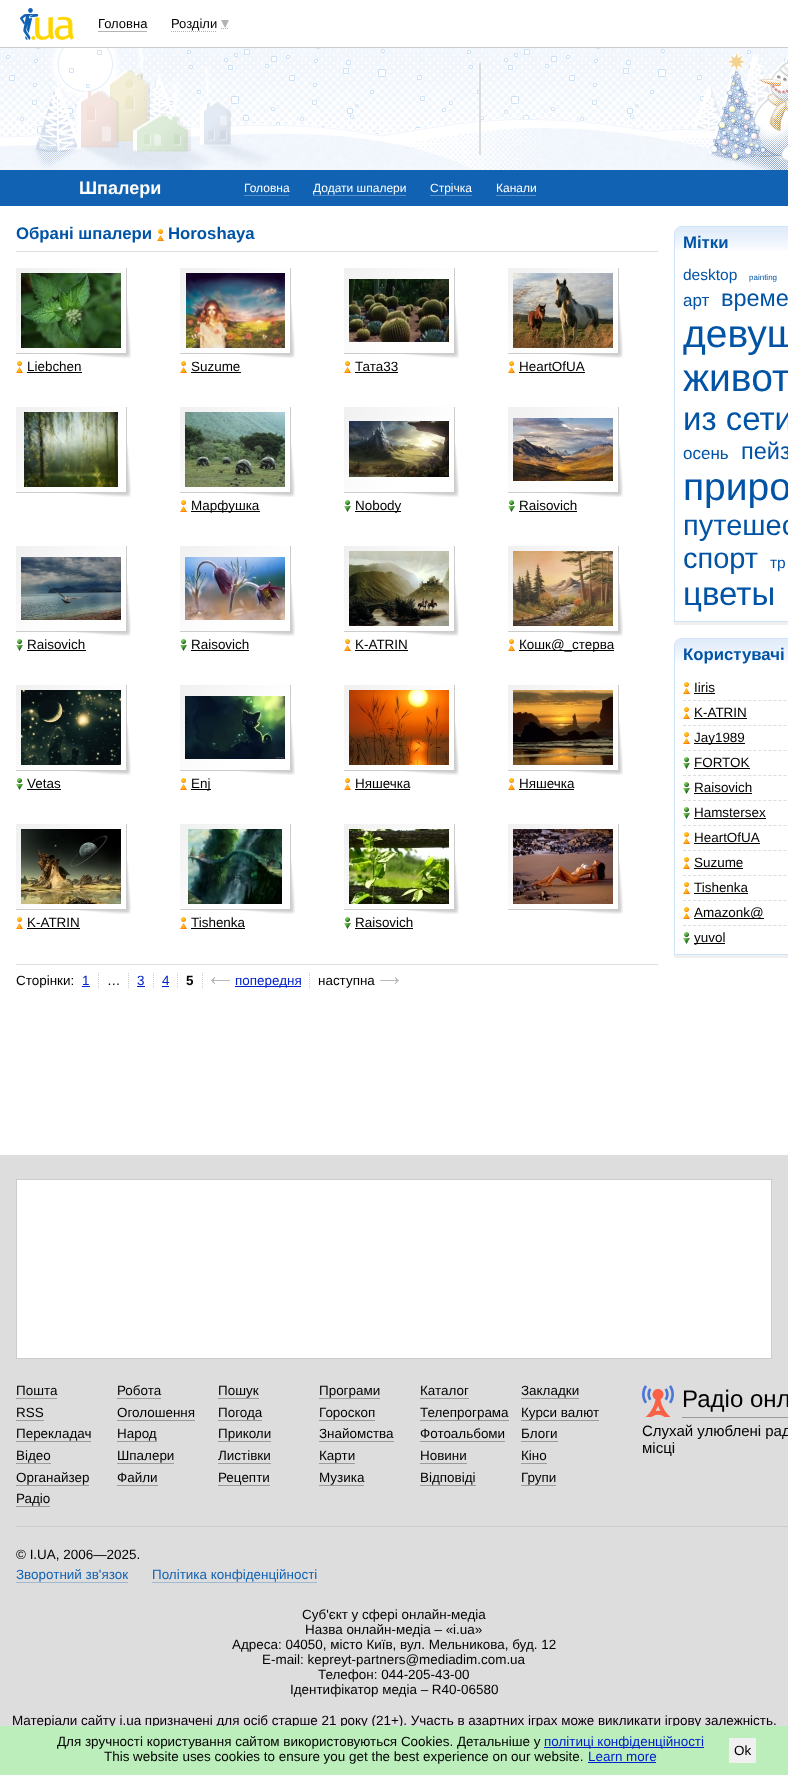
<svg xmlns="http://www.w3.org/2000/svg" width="788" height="1775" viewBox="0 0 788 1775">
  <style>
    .t1 { font: 13px Liberation Sans; fill: #000; }
    .t2 { font: bold 18px Liberation Sans; fill: #fff; }
    .t3 { font: 12px Liberation Sans; fill: #fff; }
    .t4 { font: bold 16.75px Liberation Sans; fill: #0053a5; }
    .t5 { font: 13.45px Liberation Sans; fill: #000; }
    .t6 { font: 13.45px Liberation Sans; fill: #02c; }
    .t7 { font: bold 13.45px Liberation Sans; fill: #000; }
    .t8 { font: 15.5px Liberation Sans; fill: #0053a5; }
    .t9 { font: 8px Liberation Sans; fill: #0053a5; }
    .t10 { font: 17px Liberation Sans; fill: #0053a5; }
    .t11 { font: 23.5px Liberation Sans; fill: #0053a5; }
    .t12 { font: 39px Liberation Sans; fill: #0053a5; }
    .t13 { font: 33px Liberation Sans; fill: #0053a5; }
    .t14 { font: 29px Liberation Sans; fill: #0053a5; }
    .t15 { font: 24px Liberation Sans; fill: #000; }
    .t16 { font: 15px Liberation Sans; fill: #000; }
    .t17 { font: 13.45px Liberation Sans; fill: #1162b3; }
  </style>
  <rect width="100%" height="100%" fill="#fff"/>
  <rect x="0" y="47" width="788" height="1" fill="#ccc"/>
  <image x="20" y="8" width="54" height="32" href="images/1.png"/>
  <text x="98" y="28" class="t1">Головна</text>
  <rect x="98" y="31" width="49" height="1" fill="#b3b3b3"/>
  <path d="M171 31.5H217M221 28.5H229" fill="none" stroke="#b3b3b3" stroke-dasharray="1 1"/>
  <text x="171" y="28" class="t1">Розділи</text>
  <path d="M221 20H229L225 28Z" fill="#b3b3b3"/>
  <image x="0" y="48" width="788" height="122" href="images/2.png"/>
  <rect x="479" y="63" width="2" height="92" fill="#ddd"/>
  <rect x="0" y="170" width="788" height="36" fill="#1162b3"/>
  <text x="79" y="194" class="t2">Шпалери</text>
  <text x="244" y="192" class="t3">Головна</text>
  <rect x="244" y="195" width="45" height="1" fill="#5891ca"/>
  <text x="313" y="192" class="t3">Додати шпалери</text>
  <rect x="313" y="195" width="93" height="1" fill="#5891ca"/>
  <text x="430" y="192" class="t3">Стрічка</text>
  <rect x="430" y="195" width="42" height="1" fill="#5891ca"/>
  <text x="496" y="192" class="t3">Канали</text>
  <rect x="496" y="195" width="40" height="1" fill="#5891ca"/>
  <text x="16" y="239" class="t4">Обрані шпалери</text>
  <image x="157" y="229" width="7" height="12" href="images/3.png"/>
  <text x="168" y="239" class="t4">Horoshaya</text>
  <rect x="16" y="251" width="642" height="1" fill="#ddd"/>
  <image x="16" y="268" width="115" height="90" href="images/4.png"/>
  <image x="21" y="273" width="100" height="75" href="images/5.png"/>
  <image x="16" y="361" width="7" height="12" href="images/3.png"/>
  <text x="27" y="371" class="t5">Liebchen</text>
  <rect x="27" y="372" width="55" height="1" fill="#000"/>
  <image x="180" y="268" width="115" height="90" href="images/4.png"/>
  <image x="186" y="273" width="99" height="75" href="images/6.png"/>
  <image x="180" y="361" width="7" height="12" href="images/3.png"/>
  <text x="191" y="371" class="t5">Suzume</text>
  <rect x="191" y="372" width="50" height="1" fill="#000"/>
  <image x="344" y="268" width="115" height="90" href="images/4.png"/>
  <image x="349" y="279" width="100" height="63" href="images/7.png"/>
  <image x="344" y="361" width="7" height="12" href="images/3.png"/>
  <text x="355" y="371" class="t5">Тата33</text>
  <rect x="355" y="372" width="43" height="1" fill="#000"/>
  <image x="508" y="268" width="115" height="90" href="images/4.png"/>
  <image x="513" y="273" width="100" height="75" href="images/8.png"/>
  <image x="508" y="361" width="7" height="12" href="images/3.png"/>
  <text x="519" y="371" class="t5">HeartOfUA</text>
  <rect x="519" y="372" width="66" height="1" fill="#000"/>
  <image x="16" y="407" width="115" height="90" href="images/4.png"/>
  <image x="24" y="412" width="94" height="75" href="images/9.png"/>
  <image x="180" y="407" width="115" height="90" href="images/4.png"/>
  <image x="185" y="412" width="100" height="75" href="images/10.png"/>
  <image x="180" y="500" width="7" height="12" href="images/3.png"/>
  <rect x="191" y="511" width="69" height="1" fill="#000"/>
  <text x="191" y="510" class="t5">Марфушка</text>
  <image x="344" y="407" width="115" height="90" href="images/4.png"/>
  <image x="349" y="421" width="100" height="56" href="images/11.png"/>
  <image x="344" y="500" width="7" height="12" href="images/12.png"/>
  <rect x="355" y="511" width="46" height="1" fill="#000"/>
  <text x="355" y="510" class="t5">Nobody</text>
  <image x="508" y="407" width="115" height="90" href="images/4.png"/>
  <image x="513" y="418" width="100" height="63" href="images/13.png"/>
  <image x="508" y="500" width="7" height="12" href="images/12.png"/>
  <text x="519" y="510" class="t5">Raisovich</text>
  <rect x="519" y="511" width="58" height="1" fill="#000"/>
  <image x="16" y="546" width="115" height="90" href="images/4.png"/>
  <image x="21" y="557" width="100" height="63" href="images/14.png"/>
  <image x="16" y="639" width="7" height="12" href="images/12.png"/>
  <text x="27" y="649" class="t5">Raisovich</text>
  <rect x="27" y="650" width="59" height="1" fill="#000"/>
  <image x="180" y="546" width="115" height="90" href="images/4.png"/>
  <image x="185" y="557" width="100" height="63" href="images/15.png"/>
  <image x="180" y="639" width="7" height="12" href="images/12.png"/>
  <text x="191" y="649" class="t5">Raisovich</text>
  <rect x="191" y="650" width="58" height="1" fill="#000"/>
  <image x="344" y="546" width="115" height="90" href="images/4.png"/>
  <image x="349" y="551" width="100" height="75" href="images/16.png"/>
  <image x="344" y="639" width="7" height="12" href="images/3.png"/>
  <text x="355" y="649" class="t5">K-ATRIN</text>
  <rect x="355" y="650" width="53" height="1" fill="#000"/>
  <image x="508" y="546" width="115" height="90" href="images/4.png"/>
  <image x="513" y="551" width="100" height="75" href="images/17.png"/>
  <image x="508" y="639" width="7" height="12" href="images/3.png"/>
  <rect x="519" y="650" width="95" height="1" fill="#000"/>
  <text x="519" y="649" class="t5">Кошк@_стерва</text>
  <image x="16" y="685" width="115" height="90" href="images/4.png"/>
  <image x="21" y="690" width="100" height="75" href="images/18.png"/>
  <image x="16" y="778" width="7" height="12" href="images/12.png"/>
  <text x="27" y="788" class="t5">Vetas</text>
  <rect x="27" y="789" width="34" height="1" fill="#000"/>
  <image x="180" y="685" width="115" height="90" href="images/4.png"/>
  <image x="185" y="696" width="100" height="63" href="images/19.png"/>
  <image x="180" y="778" width="7" height="12" href="images/3.png"/>
  <rect x="191" y="789" width="20" height="1" fill="#000"/>
  <text x="191" y="788" class="t5">Enj</text>
  <image x="344" y="685" width="115" height="90" href="images/4.png"/>
  <image x="349" y="690" width="100" height="75" href="images/20.png"/>
  <image x="344" y="778" width="7" height="12" href="images/3.png"/>
  <text x="355" y="788" class="t5">Няшечка</text>
  <rect x="355" y="789" width="55" height="1" fill="#000"/>
  <image x="508" y="685" width="115" height="90" href="images/4.png"/>
  <image x="513" y="690" width="100" height="75" href="images/21.png"/>
  <image x="508" y="778" width="7" height="12" href="images/3.png"/>
  <text x="519" y="788" class="t5">Няшечка</text>
  <rect x="519" y="789" width="55" height="1" fill="#000"/>
  <image x="508" y="824" width="115" height="90" href="images/4.png"/>
  <image x="513" y="829" width="100" height="75" href="images/22.png"/>
  <image x="16" y="824" width="115" height="90" href="images/4.png"/>
  <image x="21" y="829" width="100" height="75" href="images/23.png"/>
  <image x="16" y="917" width="7" height="12" href="images/3.png"/>
  <text x="27" y="927" class="t5">K-ATRIN</text>
  <rect x="27" y="928" width="53" height="1" fill="#000"/>
  <image x="180" y="824" width="115" height="90" href="images/4.png"/>
  <image x="188" y="829" width="94" height="75" href="images/24.png"/>
  <image x="180" y="917" width="7" height="12" href="images/3.png"/>
  <text x="191" y="927" class="t5">Tishenka</text>
  <rect x="191" y="928" width="54" height="1" fill="#000"/>
  <image x="344" y="824" width="115" height="90" href="images/4.png"/>
  <image x="349" y="829" width="100" height="75" href="images/25.png"/>
  <image x="344" y="917" width="7" height="12" href="images/12.png"/>
  <text x="355" y="927" class="t5">Raisovich</text>
  <rect x="355" y="928" width="58" height="1" fill="#000"/>
  <rect x="16" y="964" width="642" height="1" fill="#ddd"/>
  <text x="16" y="985" class="t5">Сторінки:</text>
  <path d="M98.5 973V988" fill="none" stroke="#ccc" stroke-dasharray="1 1"/>
  <text x="82" y="985" class="t6">1</text>
  <rect x="82" y="986" width="8" height="1" fill="#02c"/>
  <path d="M128.5 973V988" fill="none" stroke="#ccc" stroke-dasharray="1 1"/>
  <text x="107" y="985" class="t5">…</text>
  <path d="M153.5 973V988" fill="none" stroke="#ccc" stroke-dasharray="1 1"/>
  <text x="137" y="985" class="t6">3</text>
  <rect x="137" y="986" width="8" height="1" fill="#02c"/>
  <path d="M177.5 973V988" fill="none" stroke="#ccc" stroke-dasharray="1 1"/>
  <text x="162" y="985" class="t6">4</text>
  <rect x="162" y="986" width="7" height="1" fill="#02c"/>
  <path d="M202.5 973V988" fill="none" stroke="#ccc" stroke-dasharray="1 1"/>
  <text x="186" y="985" class="t7">5</text>
  <path d="M309.5 973V988" fill="none" stroke="#ccc" stroke-dasharray="1 1"/>
  <image x="211" y="977" width="19" height="7" href="images/26.png"/>
  <rect x="235" y="986" width="66" height="1" fill="#02c"/>
  <text x="235" y="985" class="t6">попередня</text>
  <text x="318" y="985" class="t5">наступна</text>
  <image x="380" y="977" width="19" height="7" href="images/27.png"/>
  <rect x="674" y="622" width="114" height="3" fill="#f0f0f0"/>
  <image x="675" y="227" width="113" height="24" href="images/29.png"/>
  <rect x="674.5" y="226.5" width="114" height="395" fill="none" stroke="#cee3f7"/>
  <image x="674" y="226" width="7" height="7" href="images/28.png"/>
  <text x="683" y="248" class="t4">Мітки</text>
  <text x="683" y="280" class="t8">desktop</text>
  <text x="749" y="280" class="t9">painting</text>
  <text x="683" y="306" class="t10">арт</text>
  <text x="721" y="306" class="t11">време</text>
  <text x="683" y="347" class="t12">девуш</text>
  <text x="683" y="391" class="t12">живот</text>
  <text x="683" y="430" class="t13">из сети</text>
  <text x="683" y="459" class="t10">осень</text>
  <text x="741" y="459" class="t11">пейз</text>
  <text x="683" y="500" class="t12">приро</text>
  <text x="683" y="535" class="t14">путешес</text>
  <text x="683" y="568" class="t14">спорт</text>
  <text x="770" y="568" class="t8">тр</text>
  <text x="683" y="605" class="t13">цветы</text>
  <rect x="674" y="955" width="114" height="3" fill="#f0f0f0"/>
  <image x="675" y="639" width="113" height="24" href="images/29.png"/>
  <rect x="674.5" y="638.5" width="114" height="316" fill="none" stroke="#cee3f7"/>
  <image x="674" y="638" width="7" height="7" href="images/28.png"/>
  <text x="683" y="660" class="t4">Користувачі</text>
  <path d="M683 700.5H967" fill="none" stroke="#ddd" stroke-dasharray="3 2.02"/>
  <image x="683" y="682" width="7" height="12" href="images/3.png"/>
  <text x="694" y="692" class="t5">Iiris</text>
  <rect x="694" y="693" width="21" height="1" fill="#000"/>
  <path d="M683 725.5H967" fill="none" stroke="#ddd" stroke-dasharray="3 2.02"/>
  <image x="683" y="707" width="7" height="12" href="images/3.png"/>
  <text x="694" y="717" class="t5">K-ATRIN</text>
  <rect x="694" y="718" width="53" height="1" fill="#000"/>
  <path d="M683 750.5H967" fill="none" stroke="#ddd" stroke-dasharray="3 2.02"/>
  <image x="683" y="732" width="7" height="12" href="images/3.png"/>
  <rect x="694" y="743" width="51" height="1" fill="#000"/>
  <text x="694" y="742" class="t5">Jay1989</text>
  <path d="M683 775.5H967" fill="none" stroke="#ddd" stroke-dasharray="3 2.02"/>
  <image x="683" y="757" width="7" height="12" href="images/12.png"/>
  <text x="694" y="767" class="t5">FORTOK</text>
  <rect x="694" y="768" width="56" height="1" fill="#000"/>
  <path d="M683 800.5H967" fill="none" stroke="#ddd" stroke-dasharray="3 2.02"/>
  <image x="683" y="782" width="7" height="12" href="images/12.png"/>
  <text x="694" y="792" class="t5">Raisovich</text>
  <rect x="694" y="793" width="58" height="1" fill="#000"/>
  <path d="M683 825.5H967" fill="none" stroke="#ddd" stroke-dasharray="3 2.02"/>
  <image x="683" y="807" width="7" height="12" href="images/12.png"/>
  <text x="694" y="817" class="t5">Hamstersex</text>
  <rect x="694" y="818" width="72" height="1" fill="#000"/>
  <path d="M683 850.5H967" fill="none" stroke="#ddd" stroke-dasharray="3 2.02"/>
  <image x="683" y="832" width="7" height="12" href="images/3.png"/>
  <text x="694" y="842" class="t5">HeartOfUA</text>
  <rect x="694" y="843" width="66" height="1" fill="#000"/>
  <path d="M683 875.5H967" fill="none" stroke="#ddd" stroke-dasharray="3 2.02"/>
  <image x="683" y="857" width="7" height="12" href="images/3.png"/>
  <text x="694" y="867" class="t5">Suzume</text>
  <rect x="694" y="868" width="49" height="1" fill="#000"/>
  <path d="M683 900.5H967" fill="none" stroke="#ddd" stroke-dasharray="3 2.02"/>
  <image x="683" y="882" width="7" height="12" href="images/3.png"/>
  <text x="694" y="892" class="t5">Tishenka</text>
  <rect x="694" y="893" width="54" height="1" fill="#000"/>
  <path d="M683 925.5H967" fill="none" stroke="#ddd" stroke-dasharray="3 2.02"/>
  <image x="683" y="907" width="7" height="12" href="images/3.png"/>
  <rect x="694" y="918" width="70" height="1" fill="#000"/>
  <text x="694" y="917" class="t5">Amazonk@</text>
  <image x="683" y="932" width="7" height="12" href="images/12.png"/>
  <rect x="694" y="943" width="31" height="1" fill="#000"/>
  <text x="694" y="942" class="t5">yuvol</text>
  <rect x="0" y="1155" width="788" height="571" fill="#ddd"/>
  <rect x="16.5" y="1179.5" width="755" height="179" fill="#fff" stroke="#ccc"/>
  <text x="16" y="1395" class="t5">Пошта</text>
  <rect x="16" y="1398" width="41" height="1" fill="#9b9b9b"/>
  <text x="117" y="1395" class="t5">Робота</text>
  <rect x="117" y="1398" width="44" height="1" fill="#9b9b9b"/>
  <text x="218" y="1395" class="t5">Пошук</text>
  <rect x="218" y="1398" width="41" height="1" fill="#9b9b9b"/>
  <text x="319" y="1395" class="t5">Програми</text>
  <rect x="319" y="1398" width="61" height="1" fill="#9b9b9b"/>
  <text x="420" y="1395" class="t5">Каталог</text>
  <rect x="420" y="1398" width="49" height="1" fill="#9b9b9b"/>
  <text x="521" y="1395" class="t5">Закладки</text>
  <rect x="521" y="1398" width="58" height="1" fill="#9b9b9b"/>
  <text x="16" y="1417" class="t5">RSS</text>
  <rect x="16" y="1420" width="28" height="1" fill="#9b9b9b"/>
  <text x="117" y="1417" class="t5">Оголошення</text>
  <rect x="117" y="1420" width="78" height="1" fill="#9b9b9b"/>
  <text x="218" y="1417" class="t5">Погода</text>
  <rect x="218" y="1420" width="44" height="1" fill="#9b9b9b"/>
  <text x="319" y="1417" class="t5">Гороскоп</text>
  <rect x="319" y="1420" width="56" height="1" fill="#9b9b9b"/>
  <text x="420" y="1417" class="t5">Телепрограма</text>
  <rect x="420" y="1420" width="89" height="1" fill="#9b9b9b"/>
  <text x="521" y="1417" class="t5">Курси валют</text>
  <rect x="521" y="1420" width="78" height="1" fill="#9b9b9b"/>
  <text x="16" y="1438" class="t5">Перекладач</text>
  <rect x="16" y="1441" width="75" height="1" fill="#9b9b9b"/>
  <text x="117" y="1438" class="t5">Народ</text>
  <rect x="117" y="1441" width="40" height="1" fill="#9b9b9b"/>
  <text x="218" y="1438" class="t5">Приколи</text>
  <rect x="218" y="1441" width="53" height="1" fill="#9b9b9b"/>
  <text x="319" y="1438" class="t5">Знайомства</text>
  <rect x="319" y="1441" width="75" height="1" fill="#9b9b9b"/>
  <text x="420" y="1438" class="t5">Фотоальбоми</text>
  <rect x="420" y="1441" width="85" height="1" fill="#9b9b9b"/>
  <text x="521" y="1438" class="t5">Блоги</text>
  <rect x="521" y="1441" width="37" height="1" fill="#9b9b9b"/>
  <text x="16" y="1460" class="t5">Відео</text>
  <rect x="16" y="1463" width="35" height="1" fill="#9b9b9b"/>
  <text x="117" y="1460" class="t5">Шпалери</text>
  <rect x="117" y="1463" width="57" height="1" fill="#9b9b9b"/>
  <text x="218" y="1460" class="t5">Листівки</text>
  <rect x="218" y="1463" width="53" height="1" fill="#9b9b9b"/>
  <text x="319" y="1460" class="t5">Карти</text>
  <rect x="319" y="1463" width="36" height="1" fill="#9b9b9b"/>
  <text x="420" y="1460" class="t5">Новини</text>
  <rect x="420" y="1463" width="47" height="1" fill="#9b9b9b"/>
  <text x="521" y="1460" class="t5">Кіно</text>
  <rect x="521" y="1463" width="26" height="1" fill="#9b9b9b"/>
  <text x="16" y="1482" class="t5">Органайзер</text>
  <rect x="16" y="1485" width="73" height="1" fill="#9b9b9b"/>
  <text x="117" y="1482" class="t5">Файли</text>
  <rect x="117" y="1485" width="41" height="1" fill="#9b9b9b"/>
  <text x="218" y="1482" class="t5">Рецепти</text>
  <rect x="218" y="1485" width="52" height="1" fill="#9b9b9b"/>
  <text x="319" y="1482" class="t5">Музика</text>
  <rect x="319" y="1485" width="45" height="1" fill="#9b9b9b"/>
  <text x="420" y="1482" class="t5">Відповіді</text>
  <rect x="420" y="1485" width="56" height="1" fill="#9b9b9b"/>
  <text x="521" y="1482" class="t5">Групи</text>
  <rect x="521" y="1485" width="35" height="1" fill="#9b9b9b"/>
  <text x="16" y="1503" class="t5">Радіо</text>
  <rect x="16" y="1506" width="34" height="1" fill="#9b9b9b"/>
  <rect x="682" y="1417" width="106" height="1" fill="#9b9b9b"/>
  <image x="642" y="1385" width="32" height="32" href="images/30.png"/>
  <text x="682" y="1407" class="t15">Радіо онл</text>
  <text x="642" y="1436" class="t16">Слухай улюблені рад</text>
  <text x="642" y="1453" class="t16">місці</text>
  <rect x="16" y="1526" width="772" height="1" fill="#ccc"/>
  <text x="16" y="1559" class="t5">© I.UA, 2006—2025.</text>
  <text x="16" y="1579" class="t17">Зворотний зв'язок</text>
  <rect x="16" y="1582" width="112" height="1" fill="#a0b8d0"/>
  <text x="152" y="1579" class="t17">Політика конфіденційності</text>
  <rect x="152" y="1582" width="165" height="1" fill="#a0b8d0"/>
  <text x="302" y="1619" class="t5">Суб'єкт у сфері онлайн-медіа</text>
  <text x="305" y="1634" class="t5">Назва онлайн-медіа – «i.ua»</text>
  <text x="232" y="1649" class="t5">Адреса: 04050, місто Київ, вул. Мельникова, буд. 12</text>
  <text x="262" y="1664" class="t5">E-mail: kepreyt-partners@mediadim.com.ua</text>
  <text x="318" y="1679" class="t5">Телефон: 044-205-43-00</text>
  <text x="290" y="1694" class="t5">Ідентифікатор медіа – R40-06580</text>
  <text x="12" y="1725" class="t5">Матеріали сайту i.ua призначені для осіб старше 21 року (21+). Участь в азартних іграх може викликати ігрову залежність.</text>
  <rect x="0" y="1726" width="788" height="49" fill="#beb"/>
  <text x="57" y="1746" class="t5">Для зручності користування сайтом використовуються Cookies. Детальніше у</text>
  <rect x="544" y="1747" width="160" height="1" fill="#02c"/>
  <text x="544" y="1746" class="t6">політиці конфіденційності</text>
  <text x="104" y="1761" class="t5">This website uses cookies to ensure you get the best experience on our website.</text>
  <text x="588" y="1761" class="t6">Learn more</text>
  <rect x="588" y="1762" width="68" height="1" fill="#02c"/>
  <rect x="729" y="1738" width="27" height="25" fill="#f0f0f0"/>
  <text x="734" y="1755" class="t5">Ok</text>
</svg>
